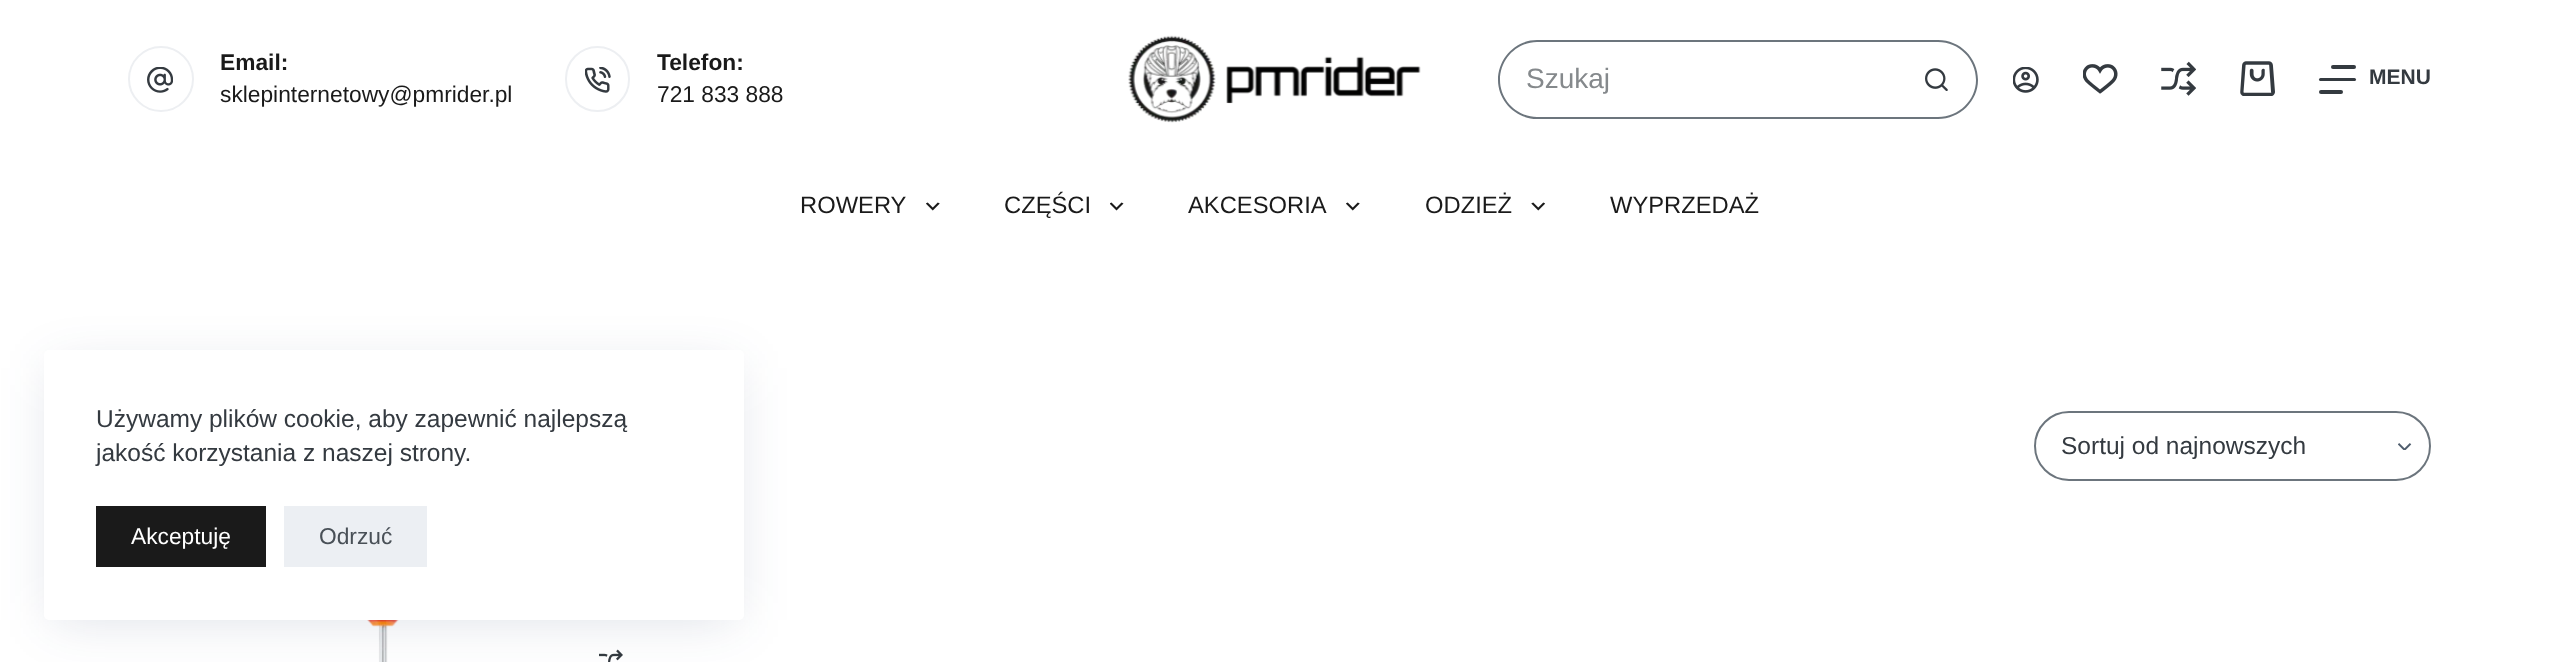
<svg xmlns="http://www.w3.org/2000/svg" width="2558" height="662" viewBox="0 0 2558 662">
  <style>
    .t1 { font: bold 22.75px Liberation Sans; fill: #1a1a1a; }
    .t2 { font: 22.75px Liberation Sans; fill: #1a1a1a; }
    .t3 { font: 28px Liberation Sans; fill: #85898c; }
    .t4 { font: bold 21px Liberation Sans; fill: #343a40; }
    .t5 { font: 23.75px Liberation Sans; fill: #1a1a1a; }
    .t6 { font: 24.5px Liberation Sans; fill: #343a40; }
    .t7 { font: 22.75px Liberation Sans; fill: #fff; }
    .t8 { font: 22.75px Liberation Sans; fill: #495057; }
  </style>
  <rect width="100%" height="100%" fill="#fff"/>
  <circle cx="161" cy="79" r="32" fill="none" stroke="#edeff2" stroke-width="2"/>
  <image x="147" y="67" width="26" height="26" href="images/1.png"/>
  <text x="220" y="70" class="t1">Email:</text>
  <text x="220" y="102" class="t2">sklepinternetowy@pmrider.pl</text>
  <rect x="566" y="47" width="63" height="64" rx="31.5" fill="none" stroke="#edeff2" stroke-width="2"/>
  <image x="585" y="67" width="26" height="26" href="images/2.png"/>
  <text x="657" y="70" class="t1">Telefon:</text>
  <text x="657" y="102" class="t2">721 833 888</text>
  <image x="1128" y="35" width="293" height="88" href="images/3.png"/>
  <path d="M1537 40H1899V119H1537C1516 119 1498 101 1498 80C1498 58 1516 40 1537 40ZM1537 42H1899V117H1537C1517 117 1500 100 1500 80C1500 59 1517 42 1537 42Z" fill="#6c757d" fill-rule="evenodd"/>
  <text x="1526" y="88" class="t3">Szukaj</text>
  <path d="M1899 40H1938C1960 40 1978 58 1978 80C1978 101 1960 119 1938 119H1899ZM1899 42H1938C1959 42 1976 59 1976 80C1976 100 1959 117 1938 117H1899Z" fill="#6c757d" fill-rule="evenodd"/>
  <image x="1925" y="68" width="23" height="23" href="images/4.png"/>
  <image x="2013" y="67" width="26" height="26" href="images/5.png"/>
  <image x="2083" y="64" width="35" height="30" href="images/6.png"/>
  <image x="2161" y="61" width="35" height="35" href="images/7.png"/>
  <image x="2240" y="61" width="35" height="35" href="images/8.png"/>
  <rect x="2331" y="65" width="25" height="4" rx="2" fill="#343a40"/>
  <rect x="2319" y="78" width="37" height="3" rx="1.5" fill="#343a40"/>
  <rect x="2319" y="90" width="24" height="4" rx="2" fill="#343a40"/>
  <text x="2369" y="84" class="t4">MENU</text>
  <text x="800" y="213" class="t5">ROWERY</text>
  <image x="926" y="202" width="14" height="9" href="images/9.png"/>
  <text x="1004" y="213" class="t5">CZĘŚCI</text>
  <image x="1110" y="202" width="14" height="9" href="images/10.png"/>
  <text x="1188" y="213" class="t5">AKCESORIA</text>
  <image x="1346" y="202" width="14" height="9" href="images/9.png"/>
  <text x="1425" y="213" class="t5">ODZIEŻ</text>
  <image x="1531" y="202" width="14" height="9" href="images/11.png"/>
  <text x="1610" y="213" class="t5">WYPRZEDAŻ</text>
  <image x="2398" y="443" width="14" height="7" href="images/12.png"/>
  <rect x="2035" y="412" width="395" height="68" rx="34" fill="none" stroke="#6c757d" stroke-width="2"/>
  <text x="2061" y="454" class="t6">Sortuj od najnowszych</text>
  <image x="367" y="620" width="32" height="42" href="images/13.png"/>
  <image x="599" y="649" width="24" height="13" href="images/14.png"/>
  <rect x="53" y="368" width="682" height="252" fill="#22386526" filter="blur(26px)"/>
  <rect x="44" y="350" width="700" height="270" rx="5" fill="#fff"/>
  <text x="96" y="427" class="t6">Używamy plików cookie, aby zapewnić najlepszą</text>
  <text x="96" y="461" class="t6">jakość korzystania z naszej strony.</text>
  <rect x="96" y="506" width="170" height="61" fill="#1a1a1a"/>
  <text x="131" y="544" class="t7">Akceptuję</text>
  <rect x="284" y="506" width="143" height="61" fill="#eceff3"/>
  <text x="319" y="544" class="t8">Odrzuć</text>
</svg>
